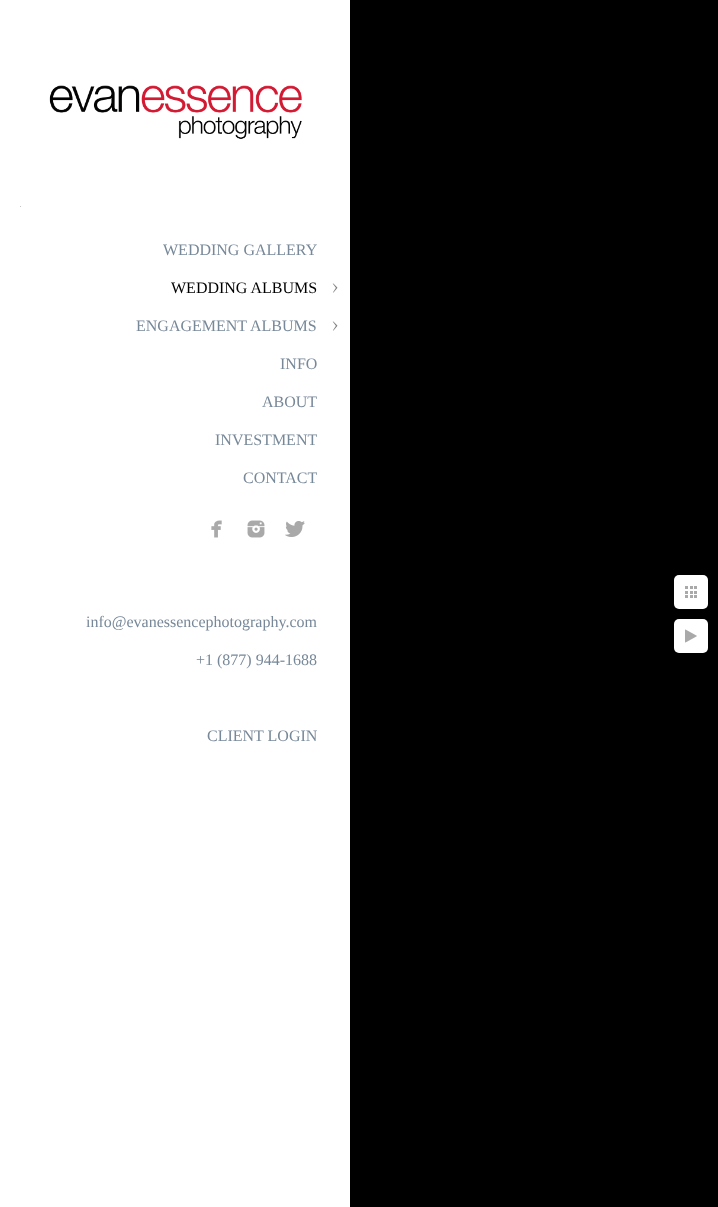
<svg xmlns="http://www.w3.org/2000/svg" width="718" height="1207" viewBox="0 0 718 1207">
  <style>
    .t1 { font: 16px Liberation Serif; fill: #789; }
    .t2 { font: 16px Liberation Serif; fill: #000; }
  </style>
  <rect width="100%" height="100%" fill="#000"/>
  <rect x="0" y="0" width="350" height="1207" fill="#fff"/>
  <image x="20" y="85" width="282" height="122" href="images/1.png"/>
  <text x="163" y="255" class="t1">WEDDING GALLERY</text>
  <text x="171" y="293" class="t2">WEDDING ALBUMS</text>
  <image x="332" y="283" width="6" height="10" href="images/2.png"/>
  <text x="136" y="331" class="t1">ENGAGEMENT ALBUMS</text>
  <image x="332" y="321" width="6" height="10" href="images/2.png"/>
  <text x="280" y="369" class="t1">INFO</text>
  <text x="262" y="407" class="t1">ABOUT</text>
  <text x="215" y="445" class="t1">INVESTMENT</text>
  <text x="243" y="483" class="t1">CONTACT</text>
  <image x="211" y="520" width="11" height="18" href="images/3.png"/>
  <image x="247" y="520" width="18" height="18" href="images/4.png"/>
  <image x="285" y="521" width="20" height="16" href="images/5.png"/>
  <text x="86" y="627" class="t1">info@evanessencephotography.com</text>
  <text x="196" y="665" class="t1">+1 (877) 944-1688</text>
  <text x="207" y="741" class="t1">CLIENT LOGIN</text>
  <rect x="674" y="575" width="34" height="34" rx="5" fill="#fff"/>
  <image x="685" y="586" width="12" height="12" href="images/6.png"/>
  <rect x="674" y="619" width="34" height="34" rx="5" fill="#fff"/>
  <image x="685" y="629" width="12" height="14" href="images/7.png"/>
</svg>
